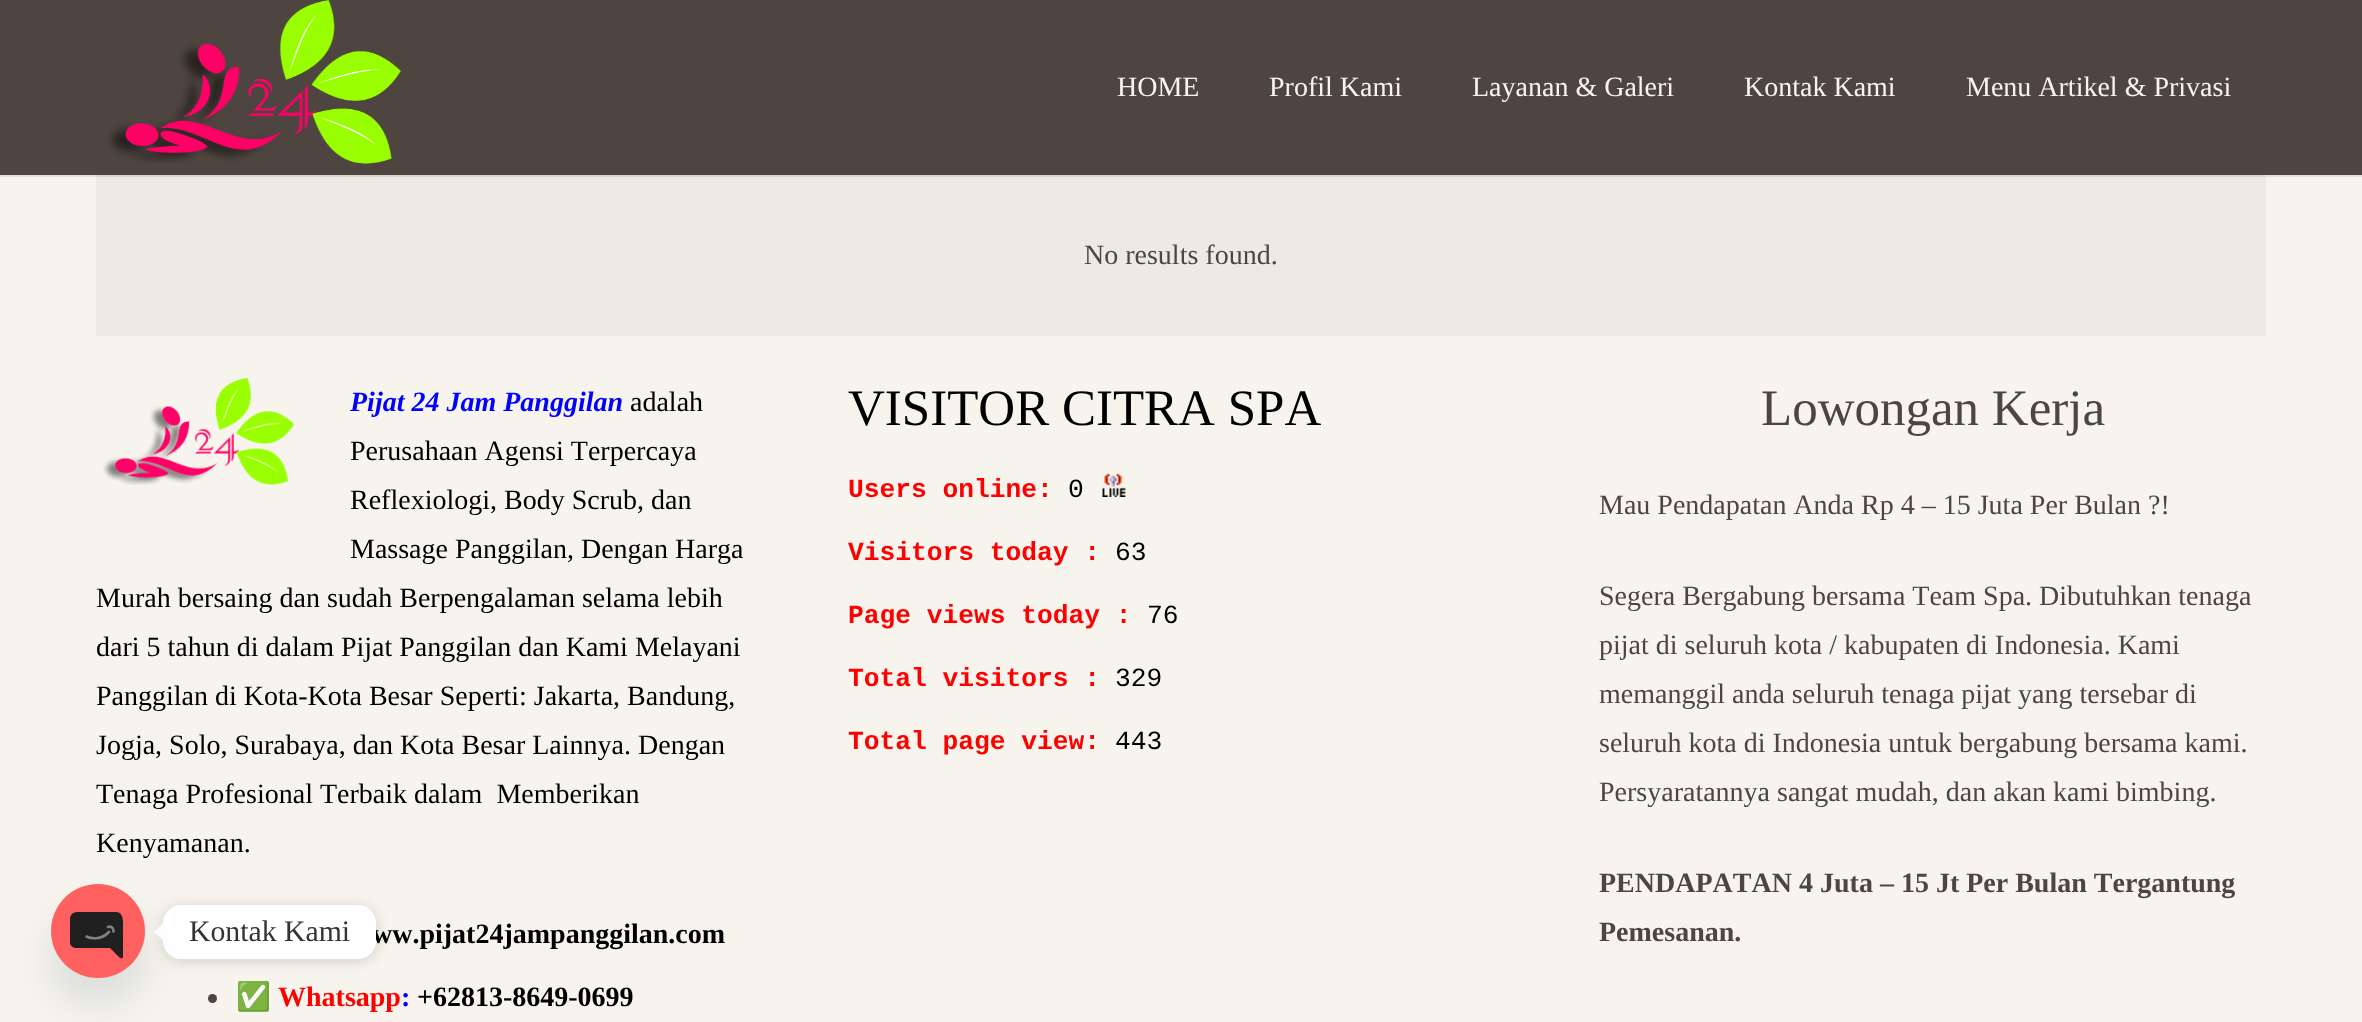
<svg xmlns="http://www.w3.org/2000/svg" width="2362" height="1022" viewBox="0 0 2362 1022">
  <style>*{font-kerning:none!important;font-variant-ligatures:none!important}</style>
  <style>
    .t1 { font: 28px Liberation Serif; fill: #f7f4ed; }
    .t2 { font: 28px Liberation Serif; fill: #4e4540; }
    .t3 { font: italic bold 28px Liberation Serif; fill: #00f; }
    .t4 { font: 28px Liberation Serif; fill: #000; }
    .t5 { font: bold 28px Liberation Serif; fill: #000; }
    .t6 { font: 28px Noto Color Emoji; fill: #4e4540; }
    .t7 { font: bold 28px Liberation Serif; fill: #f00; }
    .t8 { font: bold 28px Liberation Serif; fill: #00f; }
    .t9 { font: 51px Liberation Serif; fill: #000; }
    .t10 { font: bold 26.25px Liberation Mono; fill: #f00; }
    .t11 { font: 26.25px Liberation Mono; fill: #000; }
    .t12 { font: 51px Liberation Serif; fill: #4e4540; }
    .t13 { font: bold 28px Liberation Serif; fill: #4e4540; }
    .t14 { font: 29.75px Liberation Serif; fill: #333; }
  </style>
  <rect width="100%" height="100%" fill="#f7f4ed"/>
  <rect x="96" y="175" width="2170" height="161" fill="#edeae4"/>
  <path d="M0 175V177H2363V2H2362V175Z" fill="#00000014"/>
  <rect x="0" y="0" width="2362" height="175" fill="#4e4540"/>
  <image x="108" y="0" width="293" height="164" href="images/1.png"/>
  <text x="1117" y="96" class="t1">HOME</text>
  <text x="1269" y="96" class="t1">Profil Kami</text>
  <text x="1472" y="96" class="t1">Layanan &amp; Galeri</text>
  <text x="1744" y="96" class="t1">Kontak Kami</text>
  <text x="1966" y="96" class="t1">Menu Artikel &amp; Privasi</text>
  <text x="1084" y="264" class="t2">No results found.</text>
  <image x="103" y="378" width="191" height="107" href="images/2.png"/>
  <text x="350" y="411" class="t3">Pijat 24 Jam Panggilan</text>
  <text x="630" y="411" class="t4">adalah</text>
  <text x="350" y="460" class="t4">Perusahaan Agensi Terpercaya</text>
  <text x="350" y="509" class="t4">Reflexiologi, Body Scrub, dan</text>
  <text x="350" y="558" class="t4">Massage Panggilan, Dengan Harga</text>
  <text x="96" y="607" class="t4">Murah bersaing dan sudah Berpengalaman selama lebih</text>
  <text x="96" y="656" class="t4">dari 5 tahun di dalam Pijat Panggilan dan Kami Melayani</text>
  <text x="96" y="705" class="t4">Panggilan di Kota-Kota Besar Seperti: Jakarta, Bandung,</text>
  <text x="96" y="754" class="t4">Jogja, Solo, Surabaya, dan Kota Besar Lainnya. Dengan</text>
  <text x="96" y="803" class="t4" xml:space="preserve">Tenaga Profesional Terbaik dalam  Memberikan</text>
  <text x="96" y="852" class="t4">Kenyamanan.</text>
  <text x="372" y="943" class="t5">ww.pijat24jampanggilan.com</text>
  <circle cx="212.5" cy="998.5" r="4.5" fill="#4e4540"/>
  <text x="236" y="1006" class="t6">✅</text>
  <text x="278" y="1006" class="t7">Whatsapp</text>
  <text x="401" y="1006" class="t8">:</text>
  <text x="417" y="1006" class="t5">+62813-8649-0699</text>
  <text x="848" y="425" class="t9">VISITOR CITRA SPA</text>
  <text x="848" y="497" class="t10">Users online:</text>
  <text x="1068" y="497" class="t11">0</text>
  <image x="1102" y="473" width="24" height="24" href="images/3.png"/>
  <text x="848" y="560" class="t10">Visitors today :</text>
  <text x="1115" y="560" class="t11">63</text>
  <text x="848" y="623" class="t10">Page views today :</text>
  <text x="1147" y="623" class="t11">76</text>
  <text x="848" y="686" class="t10">Total visitors :</text>
  <text x="1115" y="686" class="t11">329</text>
  <text x="848" y="749" class="t10">Total page view:</text>
  <text x="1115" y="749" class="t11">443</text>
  <text x="1761" y="425" class="t12">Lowongan Kerja</text>
  <text x="1599" y="514" class="t2">Mau Pendapatan Anda Rp 4 – 15 Juta Per Bulan ?!</text>
  <text x="1599" y="605" class="t2">Segera Bergabung bersama Team Spa. Dibutuhkan tenaga</text>
  <text x="1599" y="654" class="t2">pijat di seluruh kota / kabupaten di Indonesia. Kami</text>
  <text x="1599" y="703" class="t2">memanggil anda seluruh tenaga pijat yang tersebar di</text>
  <text x="1599" y="752" class="t2">seluruh kota di Indonesia untuk bergabung bersama kami.</text>
  <text x="1599" y="801" class="t2">Persyaratannya sangat mudah, dan akan kami bimbing.</text>
  <text x="1599" y="892" class="t13">PENDAPATAN</text>
  <text x="1799" y="892" class="t13">4 Juta – 15 Jt Per Bulan Tergantung</text>
  <text x="1599" y="941" class="t13">Pemesanan.</text>
  <rect x="163" y="907" width="213" height="54" rx="18" fill="#00000026" filter="blur(7px)"/>
  <rect x="163" y="905" width="213" height="54" rx="18" fill="#fff"/>
  <path d="M163 923V940.5L154 932Z" fill="#fff"/>
  <rect x="51" y="912" width="94" height="94" rx="47" fill="#49687e29" filter="blur(21px)"/>
  <circle cx="98" cy="931" r="47" fill="#ff6060"/>
  <path d="M116 912H77C73 912 70 915 70 919V942C70 946 73 948 77 948H110L117 955C117 955 122 961 123 957V931C123 926 125 912 116 912Z" fill="#202020"/>
  <path d="M86.5 936.5C90.5 938.5 101 940.5 109 932M113.5 931.5C113.5 929.5 112.5 925.5 108 927" fill="none" stroke="#808080" stroke-width="2.6" stroke-linecap="round" stroke-linejoin="round"/>
  <text x="189" y="941" class="t14">Kontak Kami</text>
</svg>
